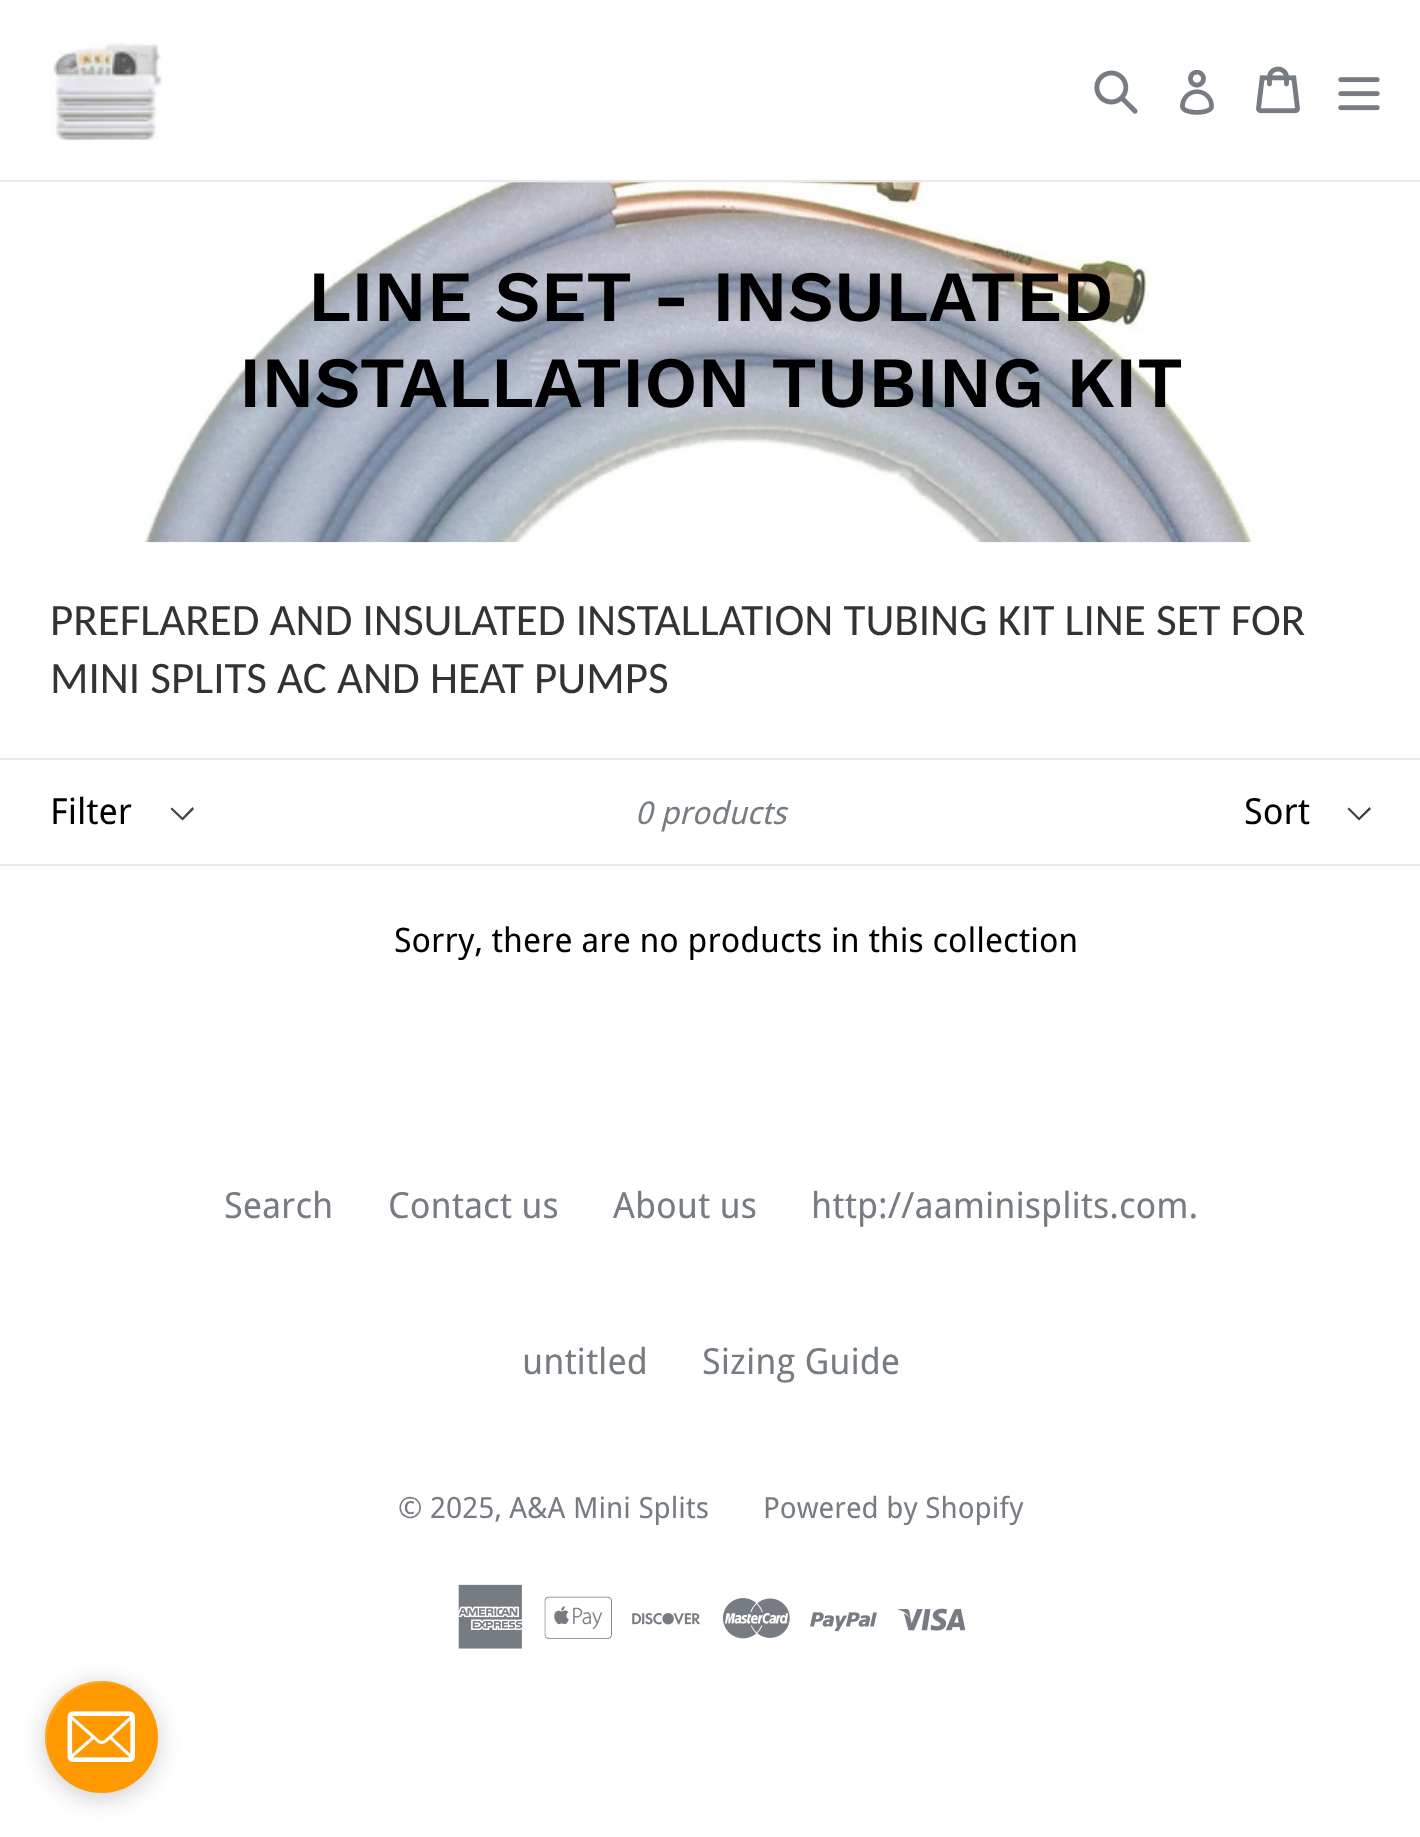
<svg xmlns="http://www.w3.org/2000/svg" width="1420" height="1837" viewBox="0 0 1420 1837">
  <style>
    .t1 { font: 600 72px Work Sans; fill: #000; }
    .t2 { font: 45px Carlito; fill: #333; }
    .t3 { font: 36px Droid Sans; fill: #000; }
    .t4 { font: italic 31.5px Droid Sans; fill: #767c81; }
    .t5 { font: 33.75px Droid Sans; fill: #000; }
    .t6 { font: 36px Droid Sans; fill: #767c81; }
    .t7 { font: 29.25px Droid Sans; fill: #767c81; }
  </style>
  <rect width="100%" height="100%" fill="#fff"/>
  <rect x="0" y="180" width="1420" height="2" fill="#e8e9eb"/>
  <image x="49" y="42" width="113" height="100" href="images/1.png"/>
  <image x="1094" y="70" width="44" height="44" href="images/2.png"/>
  <image x="1180" y="70" width="34" height="45" href="images/3.png"/>
  <image x="1256" y="66" width="44" height="48" href="images/4.png"/>
  <image x="1338" y="77" width="42" height="34" href="images/5.png"/>
  <image x="144" y="182" width="1112" height="361" href="images/6.png"/>
  <text x="308" y="321" class="t1">LINE SET - INSULATED</text>
  <text x="239" y="407" class="t1">INSTALLATION TUBING KIT</text>
  <text x="50" y="635" class="t2">PREFLARED AND INSULATED INSTALLATION TUBING KIT LINE SET FOR</text>
  <text x="50" y="693" class="t2">MINI SPLITS AC AND HEAT PUMPS</text>
  <rect x="0" y="758" width="1420" height="2" fill="#e8e9eb"/>
  <rect x="0" y="864" width="1420" height="2" fill="#e8e9eb"/>
  <path d="M182.5 820.5L170.5 809L172 807.5L182.5 817.5L192.5 807L194 809Z" fill="#3d4246"/>
  <text x="50" y="824" class="t3">Filter</text>
  <text x="635" y="824" class="t4">0 products</text>
  <path d="M1359 820.5L1347.5 809L1349 807.5L1359 817.5L1369.5 807L1371 809Z" fill="#3d4246"/>
  <text x="1244" y="824" class="t3">Sort</text>
  <text x="394" y="952" class="t5">Sorry, there are no products in this collection</text>
  <text x="224" y="1218" class="t6">Search</text>
  <text x="388" y="1218" class="t6">Contact us</text>
  <text x="613" y="1218" class="t6">About us</text>
  <text x="811" y="1218" class="t6">http://aaminisplits.com.</text>
  <text x="522" y="1374" class="t6">untitled</text>
  <text x="702" y="1374" class="t6">Sizing Guide</text>
  <text x="398" y="1518" class="t7">© 2025, A&amp;A Mini Splits</text>
  <text x="763" y="1518" class="t7">Powered by Shopify</text>
  <image x="458" y="1584" width="65" height="65" href="images/7.png"/>
  <image x="544" y="1596" width="68" height="43" href="images/8.png"/>
  <image x="632" y="1613" width="68" height="12" href="images/9.png"/>
  <image x="722" y="1598" width="68" height="41" href="images/10.png"/>
  <image x="810" y="1612" width="67" height="20" href="images/11.png"/>
  <image x="898" y="1608" width="67" height="23" href="images/12.png"/>
  <rect x="45" y="1685" width="113" height="113" rx="56.5" fill="#80808066" filter="blur(12.5px)"/>
  <rect x="45" y="1681" width="113" height="112" rx="56" fill="#f90"/>
  <path d="M104 1683C119 1683 132 1689 142 1698C121 1676 83 1675 61 1697C41 1718 40 1753 59 1774C30 1738 56 1683 104 1683Z" fill="#ffffff26"/>
  <image x="67" y="1711" width="68" height="51" href="images/13.png"/>
</svg>
